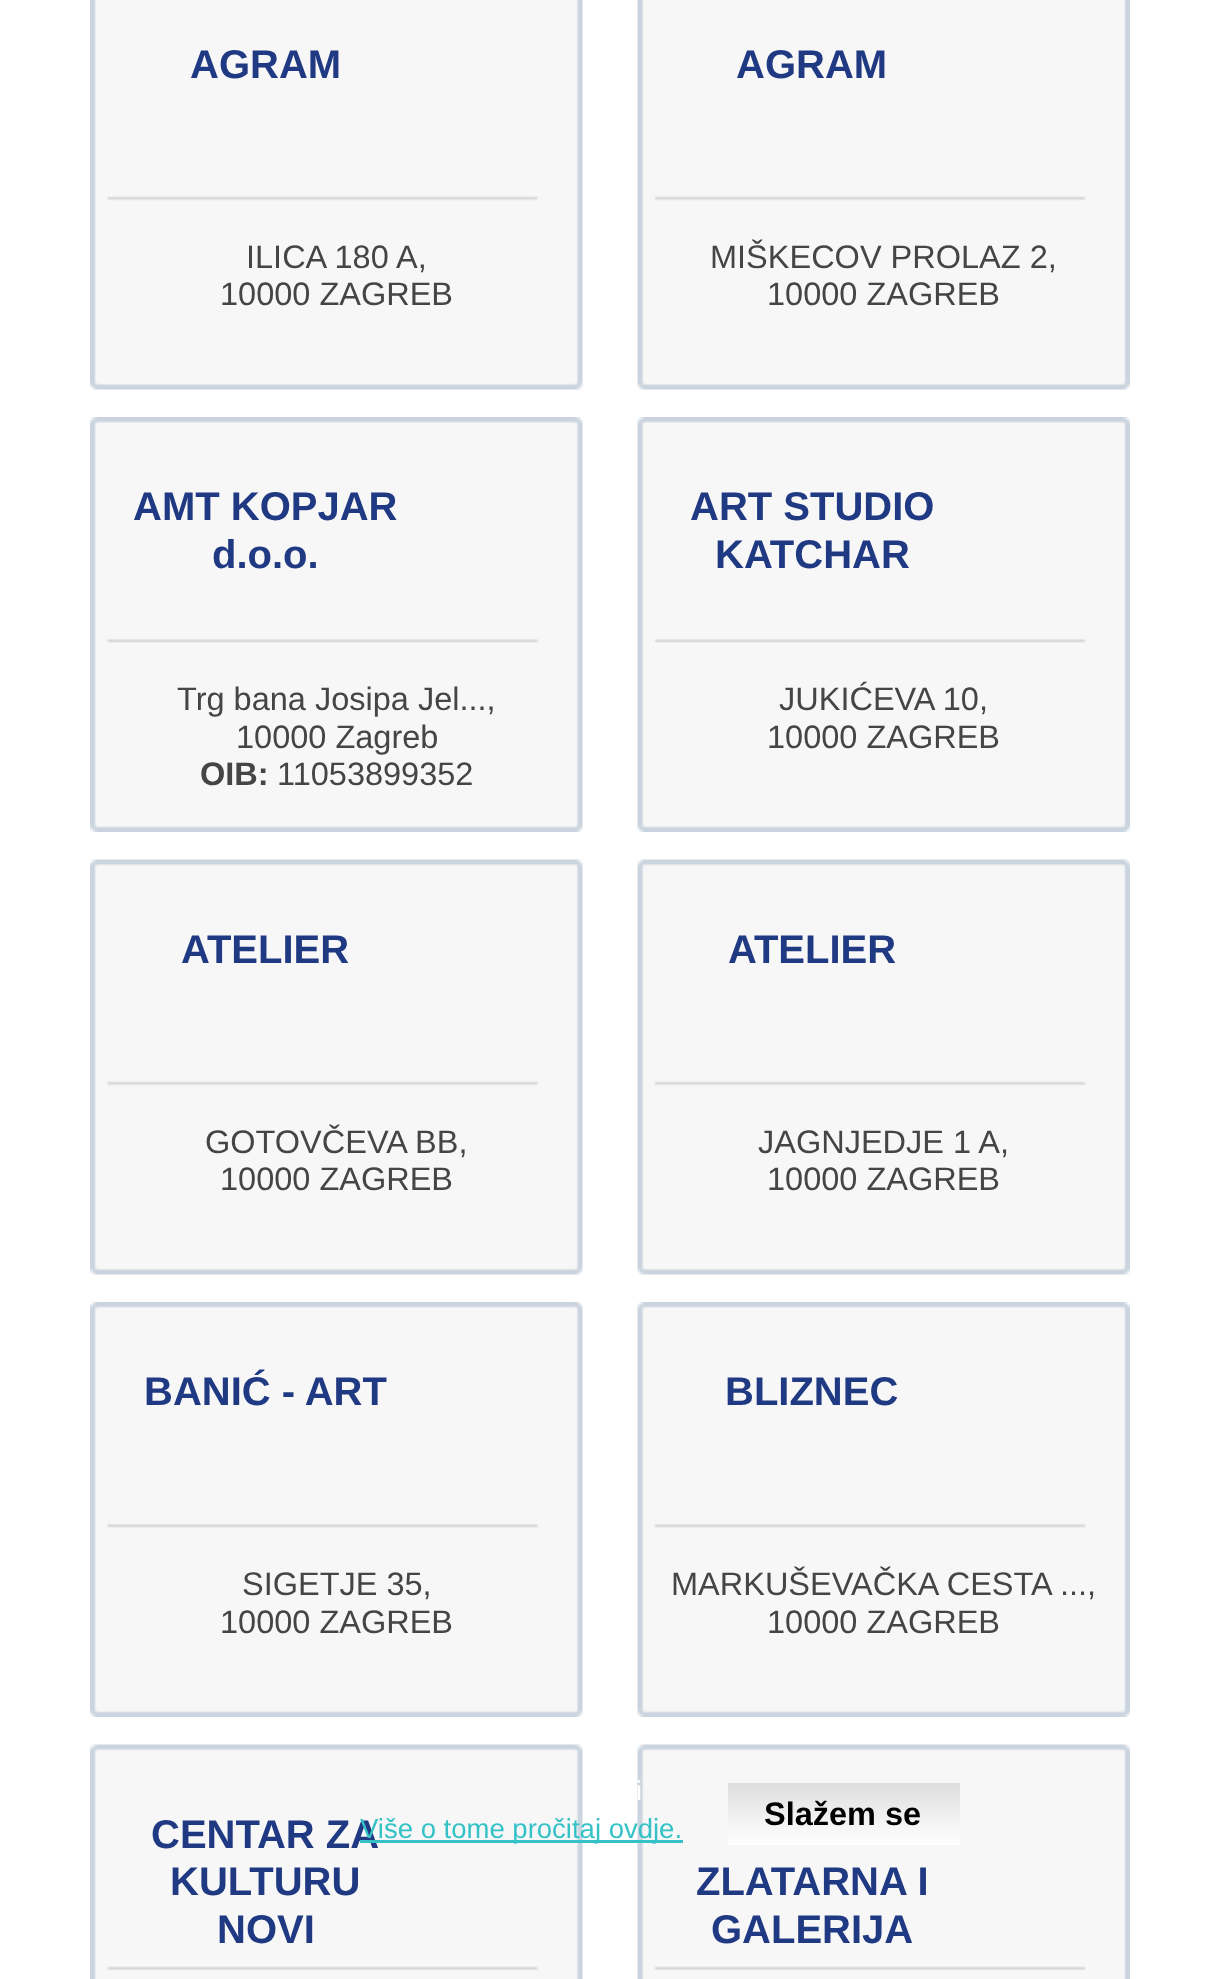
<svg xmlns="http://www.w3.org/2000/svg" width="1219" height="1979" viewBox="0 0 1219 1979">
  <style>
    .t1 { font: bold 40px Liberation Sans; fill: #203983; }
    .t2 { font: 32.5px Liberation Sans; fill: #444546; }
    .t3 { font: bold 32.5px Liberation Sans; fill: #444546; }
    .t4 { font: 27.5px Liberation Sans; fill: #fff; }
    .t5 { font: 27.5px Liberation Sans; fill: #35c2c7; }
    .t6 { font: bold 32.5px Liberation Sans; fill: #000; }
  </style>
  <defs>
    <linearGradient id="g1" gradientUnits="userSpaceOnUse" x1="844" y1="1783" x2="844" y2="1845"><stop offset="0" stop-color="#dedede"/><stop offset="1" stop-color="#fff"/></linearGradient>
  </defs>
  <rect width="100%" height="100%" fill="#fff"/>
  <image x="90" y="0" width="493" height="390" href="images/1.png"/>
  <text x="190" y="78" class="t1">AGRAM</text>
  <text x="246" y="268" class="t2">ILICA 180 A,</text>
  <text x="220" y="305" class="t2">10000 ZAGREB</text>
  <image x="637" y="0" width="493" height="390" href="images/2.png"/>
  <text x="736" y="78" class="t1">AGRAM</text>
  <text x="710" y="268" class="t2">MIŠKECOV PROLAZ 2,</text>
  <text x="767" y="305" class="t2">10000 ZAGREB</text>
  <image x="90" y="417" width="493" height="415" href="images/3.png"/>
  <text x="133" y="520" class="t1">AMT KOPJAR</text>
  <text x="212" y="568" class="t1">d.o.o.</text>
  <text x="177" y="710" class="t2">Trg bana Josipa Jel...,</text>
  <text x="236" y="748" class="t2">10000 Zagreb</text>
  <text x="200" y="785" class="t3">OIB:</text>
  <text x="277" y="785" class="t2">11053899352</text>
  <image x="637" y="417" width="493" height="415" href="images/4.png"/>
  <text x="690" y="520" class="t1">ART STUDIO</text>
  <text x="715" y="568" class="t1">KATCHAR</text>
  <text x="779" y="710" class="t2">JUKIĆEVA 10,</text>
  <text x="767" y="748" class="t2">10000 ZAGREB</text>
  <image x="90" y="859" width="493" height="416" href="images/5.png"/>
  <text x="181" y="963" class="t1">ATELIER</text>
  <text x="205" y="1153" class="t2">GOTOVČEVA BB,</text>
  <text x="220" y="1190" class="t2">10000 ZAGREB</text>
  <image x="637" y="859" width="493" height="416" href="images/6.png"/>
  <text x="728" y="963" class="t1">ATELIER</text>
  <text x="758" y="1153" class="t2">JAGNJEDJE 1 A,</text>
  <text x="767" y="1190" class="t2">10000 ZAGREB</text>
  <image x="90" y="1302" width="493" height="415" href="images/3.png"/>
  <text x="144" y="1405" class="t1">BANIĆ - ART</text>
  <text x="242" y="1595" class="t2">SIGETJE 35,</text>
  <text x="220" y="1633" class="t2">10000 ZAGREB</text>
  <image x="637" y="1302" width="493" height="415" href="images/4.png"/>
  <text x="725" y="1405" class="t1">BLIZNEC</text>
  <text x="671" y="1595" class="t2">MARKUŠEVAČKA CESTA ...,</text>
  <text x="767" y="1633" class="t2">10000 ZAGREB</text>
  <image x="90" y="1744" width="493" height="235" href="images/7.png"/>
  <text x="151" y="1848" class="t1">CENTAR ZA</text>
  <text x="170" y="1895" class="t1">KULTURU</text>
  <text x="217" y="1943" class="t1">NOVI</text>
  <image x="637" y="1744" width="493" height="235" href="images/8.png"/>
  <text x="696" y="1895" class="t1">ZLATARNA I</text>
  <text x="711" y="1943" class="t1">GALERIJA</text>
  <text x="636" y="1800" class="t4">i</text>
  <rect x="360" y="1840" width="323" height="3" fill="#35c2c7"/>
  <text x="360" y="1838" class="t5">Više o tome pročitaj ovdje.</text>
  <rect x="728" y="1783" width="232" height="62" fill="url(#g1)"/>
  <text x="764" y="1825" class="t6">Slažem se</text>
</svg>
